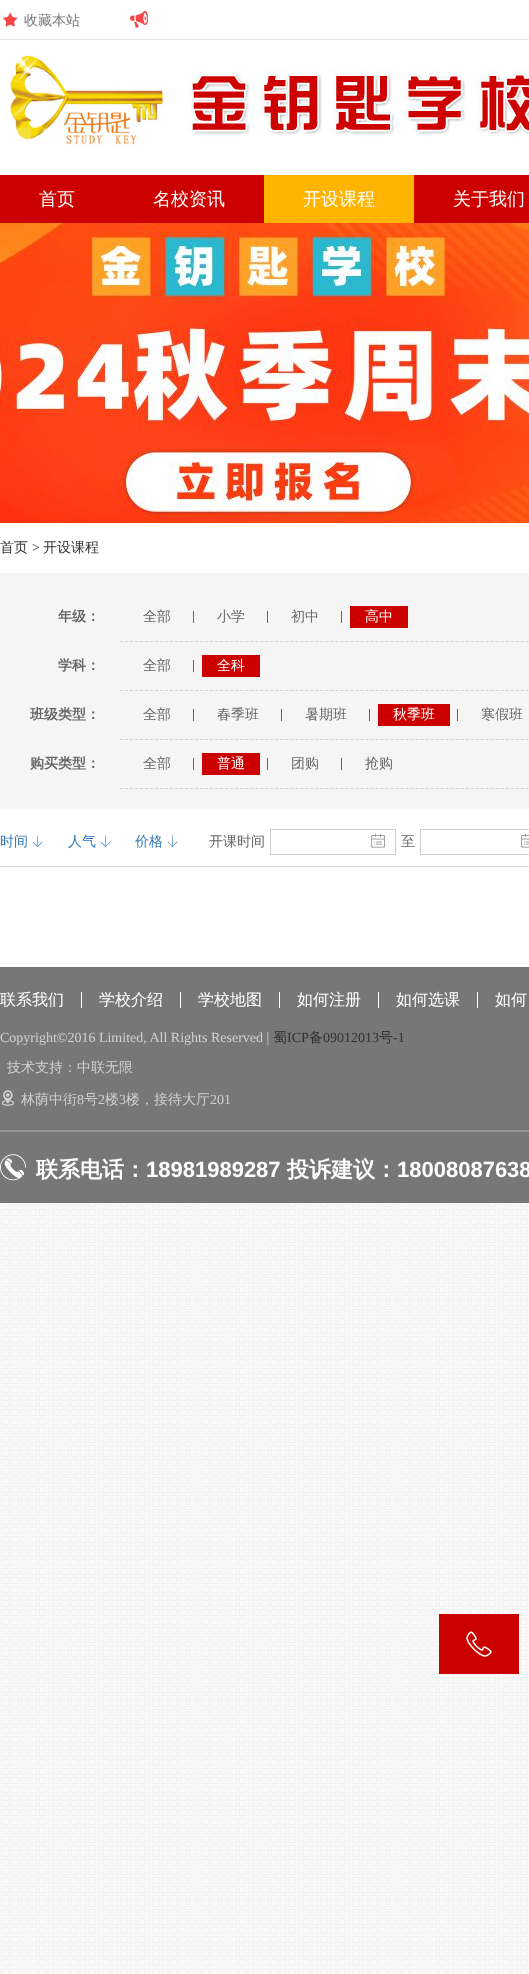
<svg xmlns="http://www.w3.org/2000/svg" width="529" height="1974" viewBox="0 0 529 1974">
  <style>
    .t1 { font: 500 14px WenQuanYi Zen Hei; fill: #777; }
    .t2 { font: 500 18px WenQuanYi Zen Hei; fill: #fff; }
    .t3 { font: 500 14px WenQuanYi Zen Hei; fill: #333; }
    .t4 { font: 14px Liberation Serif; fill: #333; }
    .t5 { font: bold 14px WenQuanYi Zen Hei; fill: #666; }
    .t6 { font: 500 14px WenQuanYi Zen Hei; fill: #666; }
    .t7 { font: 500 14px WenQuanYi Zen Hei; fill: #fff; }
    .t8 { font: 500 14px WenQuanYi Zen Hei; fill: #337ab7; }
    .t9 { font: 500 16px WenQuanYi Zen Hei; fill: #fff; }
    .t10 { font: 14px Liberation Serif; fill: #d1d1d1; }
    .t11 { font: 500 14px WenQuanYi Zen Hei; fill: #d1d1d1; }
    .t12 { font: bold 22px WenQuanYi Zen Hei; fill: #fff; }
    .t13 { font: bold 22px Liberation Sans; fill: #fff; }
  </style>
  <rect width="100%" height="100%" fill="#fff"/>
  <image x="0" y="1203" width="529" height="771" href="images/1.png"/>
  <rect x="0" y="39" width="529" height="1" fill="#e4e4e4"/>
  <image x="3" y="12" width="15" height="15" href="images/2.png"/>
  <text x="24" y="25" class="t1">收藏本站</text>
  <image x="130" y="11" width="18" height="17" href="images/3.png"/>
  <image x="10" y="55" width="519" height="94" href="images/4.png"/>
  <rect x="0" y="175" width="529" height="48" fill="#cd0000"/>
  <text x="39" y="205" class="t2">首页</text>
  <text x="153" y="205" class="t2">名校资讯</text>
  <rect x="264" y="175" width="150" height="48" fill="#ffb400"/>
  <text x="303" y="205" class="t2">开设课程</text>
  <text x="453" y="205" class="t2">关于我们</text>
  <image x="0" y="223" width="529" height="300" href="images/5.png"/>
  <text x="0" y="552" class="t3">首页</text>
  <text x="32" y="552" class="t4">&gt;</text>
  <text x="43" y="552" class="t3">开设课程</text>
  <rect x="0" y="573" width="529" height="236" fill="#f5f5f5"/>
  <text x="58" y="621" class="t5">年级：</text>
  <path d="M120 641.5H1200" fill="none" stroke="#d2d2d2" stroke-dasharray="3 2.01"/>
  <text x="143" y="621" class="t6">全部</text>
  <rect x="193" y="611" width="1" height="12" fill="#666"/>
  <text x="217" y="621" class="t6">小学</text>
  <rect x="267" y="611" width="1" height="12" fill="#666"/>
  <text x="291" y="621" class="t6">初中</text>
  <rect x="341" y="611" width="1" height="12" fill="#666"/>
  <rect x="350" y="606" width="58" height="22" fill="#cd0000"/>
  <text x="365" y="621" class="t7">高中</text>
  <text x="58" y="670" class="t5">学科：</text>
  <path d="M120 690.5H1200" fill="none" stroke="#d2d2d2" stroke-dasharray="3 2.01"/>
  <text x="143" y="670" class="t6">全部</text>
  <rect x="193" y="660" width="1" height="12" fill="#666"/>
  <rect x="202" y="655" width="58" height="22" fill="#cd0000"/>
  <text x="217" y="670" class="t7">全科</text>
  <text x="30" y="719" class="t5">班级类型：</text>
  <path d="M120 739.5H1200" fill="none" stroke="#d2d2d2" stroke-dasharray="3 2.01"/>
  <text x="143" y="719" class="t6">全部</text>
  <rect x="193" y="709" width="1" height="12" fill="#666"/>
  <text x="217" y="719" class="t6">春季班</text>
  <rect x="281" y="709" width="1" height="12" fill="#666"/>
  <text x="305" y="719" class="t6">暑期班</text>
  <rect x="369" y="709" width="1" height="12" fill="#666"/>
  <rect x="378" y="704" width="72" height="22" fill="#cd0000"/>
  <text x="393" y="719" class="t7">秋季班</text>
  <rect x="457" y="709" width="1" height="12" fill="#666"/>
  <text x="481" y="719" class="t6">寒假班</text>
  <text x="30" y="768" class="t5">购买类型：</text>
  <path d="M120 788.5H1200" fill="none" stroke="#d2d2d2" stroke-dasharray="3 2.01"/>
  <text x="143" y="768" class="t6">全部</text>
  <rect x="193" y="758" width="1" height="12" fill="#666"/>
  <rect x="202" y="753" width="58" height="22" fill="#cd0000"/>
  <text x="217" y="768" class="t7">普通</text>
  <rect x="267" y="758" width="1" height="12" fill="#666"/>
  <text x="291" y="768" class="t6">团购</text>
  <rect x="341" y="758" width="1" height="12" fill="#666"/>
  <text x="365" y="768" class="t6">抢购</text>
  <rect x="0" y="866" width="529" height="1" fill="#d8d8d8"/>
  <text x="0" y="846" class="t8">时间</text>
  <image x="32" y="835" width="11" height="12" href="images/6.png"/>
  <text x="68" y="846" class="t8">人气</text>
  <image x="100" y="835" width="11" height="12" href="images/6.png"/>
  <text x="135" y="846" class="t8">价格</text>
  <image x="167" y="835" width="11" height="12" href="images/6.png"/>
  <text x="209" y="846" class="t6">开课时间</text>
  <rect x="270.5" y="829.5" width="125" height="25" fill="none" stroke="#cecece"/>
  <image x="371" y="833" width="14" height="15" href="images/7.png"/>
  <text x="401" y="846" class="t6">至</text>
  <rect x="420.5" y="829.5" width="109" height="25" fill="none" stroke="#cecece"/>
  <image x="521" y="833" width="8" height="15" href="images/8.png"/>
  <rect x="0" y="967" width="529" height="236" fill="#777"/>
  <rect x="81" y="992" width="1" height="16" fill="#fff"/>
  <text x="0" y="1005" class="t9">联系我们</text>
  <rect x="180" y="992" width="1" height="16" fill="#fff"/>
  <text x="99" y="1005" class="t9">学校介绍</text>
  <rect x="279" y="992" width="1" height="16" fill="#fff"/>
  <text x="198" y="1005" class="t9">学校地图</text>
  <rect x="378" y="992" width="1" height="16" fill="#fff"/>
  <text x="297" y="1005" class="t9">如何注册</text>
  <rect x="477" y="992" width="1" height="16" fill="#fff"/>
  <text x="396" y="1005" class="t9">如何选课</text>
  <text x="495" y="1005" class="t9">如何</text>
  <text x="0" y="1042" class="t10">Copyright©2016 Limited, All Rights Reserved |</text>
  <text x="273" y="1042" class="t3">蜀</text>
  <text x="287" y="1042" class="t4">ICP</text>
  <text x="309" y="1042" class="t3">备</text>
  <text x="323" y="1042" class="t4">09012013</text>
  <text x="379" y="1042" class="t3">号</text>
  <text x="393" y="1042" class="t4">-1</text>
  <text x="7" y="1072" class="t11">技术支持：中联无限</text>
  <image x="1" y="1090" width="14" height="16" href="images/9.png"/>
  <text x="21" y="1104" class="t11">林荫中街</text>
  <text x="77" y="1104" class="t10">8</text>
  <text x="84" y="1104" class="t11">号</text>
  <text x="98" y="1104" class="t10">2</text>
  <text x="105" y="1104" class="t11">楼</text>
  <text x="119" y="1104" class="t10">3</text>
  <text x="126" y="1104" class="t11">楼，接待大厅</text>
  <text x="210" y="1104" class="t10">201</text>
  <rect x="0" y="1130" width="529" height="2" fill="#949494"/>
  <image x="0" y="1154" width="26" height="27" href="images/10.png"/>
  <text x="36" y="1177" class="t12">联系电话：</text>
  <text x="146" y="1177" class="t13">18981989287</text>
  <text x="287" y="1177" class="t12">投诉建议：</text>
  <text x="397" y="1177" class="t13">18008087638</text>
  <rect x="439" y="1614" width="80" height="60" fill="#cd0000"/>
  <image x="466" y="1631" width="26" height="26" href="images/11.png"/>
</svg>
